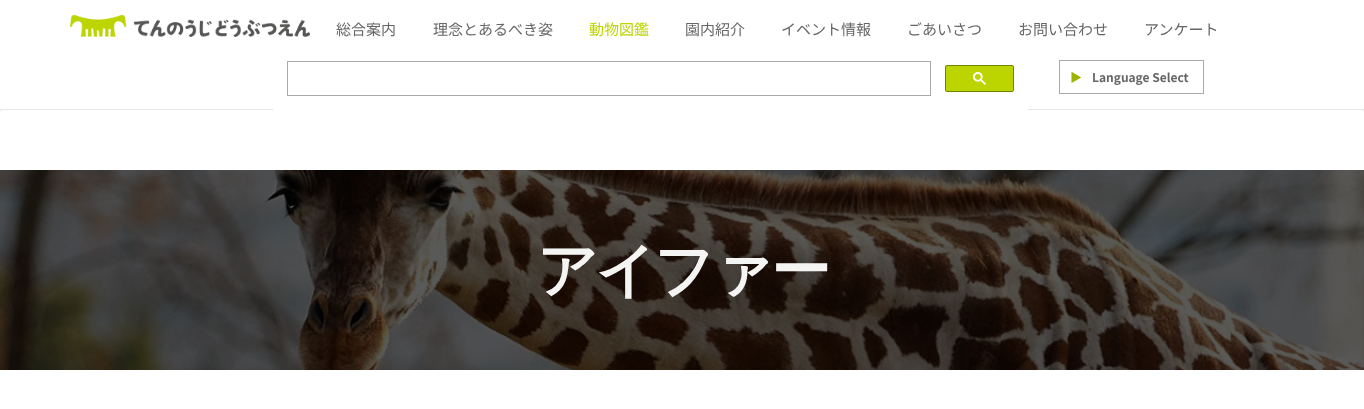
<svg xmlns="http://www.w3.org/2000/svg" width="1364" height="409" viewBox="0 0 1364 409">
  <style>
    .t1 { font: 15px Noto Sans JP; fill: #666; }
    .t2 { font: 15px Noto Sans JP; fill: #bcd400; }
    .t3 { font: bold 12px Noto Sans JP; fill: #9eb300; }
    .t4 { font: bold 12px Noto Sans JP; fill: #666; }
    .t5 { font: bold 60px WenQuanYi Zen Hei; letter-spacing: -3px; fill: #f4f4f3; }
  </style>
  <rect width="100%" height="100%" fill="#f4f5f7"/>
  <rect x="0" y="0" width="1364" height="109" fill="#fff"/>
  <rect x="0" y="109" width="1364" height="1" fill="#e6e6e6"/>
  <image x="70" y="15" width="240" height="22" href="images/1.png"/>
  <text x="336" y="35" class="t1">総合案内</text>
  <text x="433" y="35" class="t1">理念とあるべき姿</text>
  <text x="589" y="35" class="t2">動物図鑑</text>
  <text x="685" y="35" class="t1">園内紹介</text>
  <text x="781" y="35" class="t1">イベント情報</text>
  <text x="907" y="35" class="t1">ごあいさつ</text>
  <text x="1018" y="35" class="t1">お問い合わせ</text>
  <text x="1144" y="35" class="t1">アンケート</text>
  <rect x="273" y="109" width="755" height="1" fill="#fff"/>
  <rect x="287.5" y="61.5" width="643" height="34" fill="none" stroke="#aaa"/>
  <rect x="945.5" y="65.5" width="68" height="26" rx="1.5" fill="#bcd400" stroke="#758400"/>
  <image x="973" y="72" width="13" height="13" href="images/2.png"/>
  <rect x="1059.5" y="60.5" width="144" height="33" fill="none" stroke="#aaa"/>
  <text x="1070" y="82" class="t3">▶</text>
  <text x="1092" y="82" class="t4">Language Select</text>
  <rect x="0" y="110" width="1364" height="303" rx="4" fill="#fff"/>
  <image x="0" y="170" width="1364" height="200" href="images/3.png"/>
  <text x="537" y="291" class="t5">アイファー</text>
</svg>
